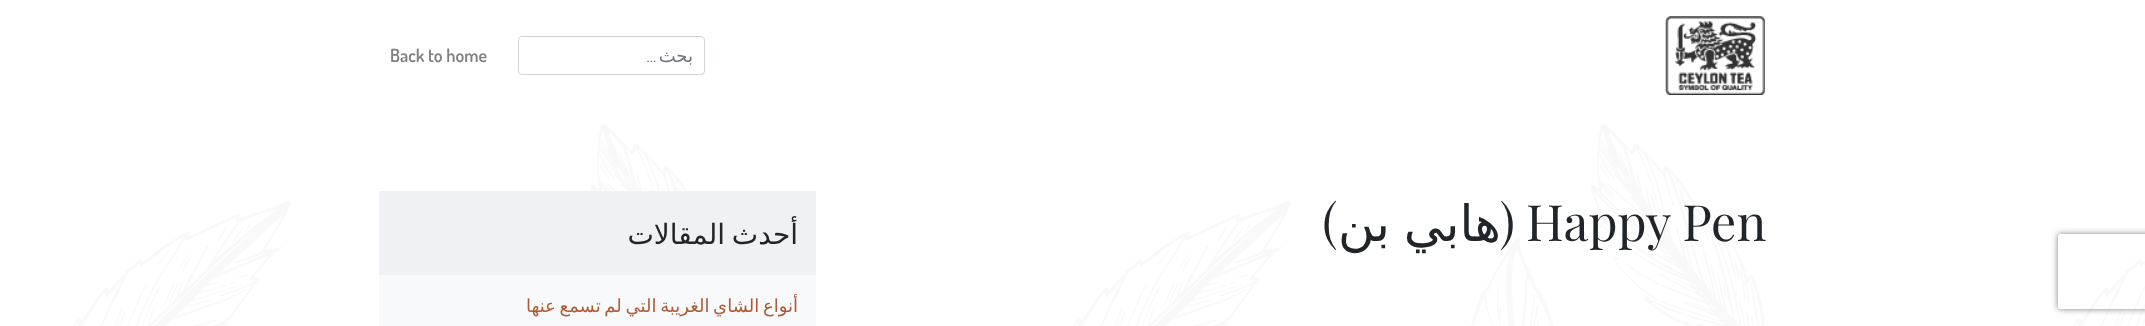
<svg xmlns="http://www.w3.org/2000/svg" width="2145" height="326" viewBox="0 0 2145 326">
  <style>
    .t1 { font: 18px DejaVu Sans; direction: rtl; fill: #6c757d; }
    .t2 { font: 18px Dosis; direction: rtl; fill: #6c757d; }
    .t3 { font: 600 18px Dosis; fill: #808080; }
    .t4 { font: 50px Playfair Display; fill: #212529; }
    .t5 { font: 50px Playfair Display; direction: rtl; fill: #212529; }
    .t6 { font: 50px DejaVu Sans; direction: rtl; fill: #212529; }
    .t7 { font: 28px DejaVu Sans; direction: rtl; fill: #212529; }
    .t8 { font: 18px DejaVu Sans; direction: rtl; fill: #ad5b34; }
  </style>
  <defs>
    <clipPath id="clip1"><path d="M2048 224H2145V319H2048ZM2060.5 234H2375.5C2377 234 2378 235 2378 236.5V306.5C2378 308 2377 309 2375.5 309H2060.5C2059 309 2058 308 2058 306.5V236.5C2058 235 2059 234 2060.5 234Z" clip-rule="evenodd"/></clipPath>
  </defs>
  <rect width="100%" height="100%" fill="#fff"/>
  <image x="1665" y="16" width="100" height="79" href="images/1.png"/>
  <rect x="518.5" y="36.5" width="186" height="38" rx="3.5" fill="none" stroke="#ced4da"/>
  <text x="693" y="62" class="t1">بحث</text>
  <text x="656" y="62" class="t2">…</text>
  <text x="390" y="62" class="t3">Back to home</text>
  <image x="73" y="124" width="2072" height="202" href="images/2.png"/>
  <g clip-path="url(#clip1)">
    <rect x="2058" y="234" width="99" height="75" rx="2.5" fill="#808080" filter="blur(3px)"/>
  </g>
  <text x="1526" y="241" class="t4">Happy Pen</text>
  <text x="1515" y="241" class="t5">(</text>
  <text x="1501" y="241" word-spacing="-2" class="t6">هابي بن</text>
  <text x="1337" y="241" class="t5">)</text>
  <rect x="379" y="275" width="437" height="51" fill="#f8f9fa"/>
  <rect x="379" y="191" width="437" height="84" fill="#eff1f4"/>
  <text x="798" y="244" word-spacing="-2" class="t7">أحدث المقالات</text>
  <text x="798" y="312" word-spacing="-2" class="t8">أنواع الشاي الغريبة التي لم تسمع عنها</text>
</svg>
